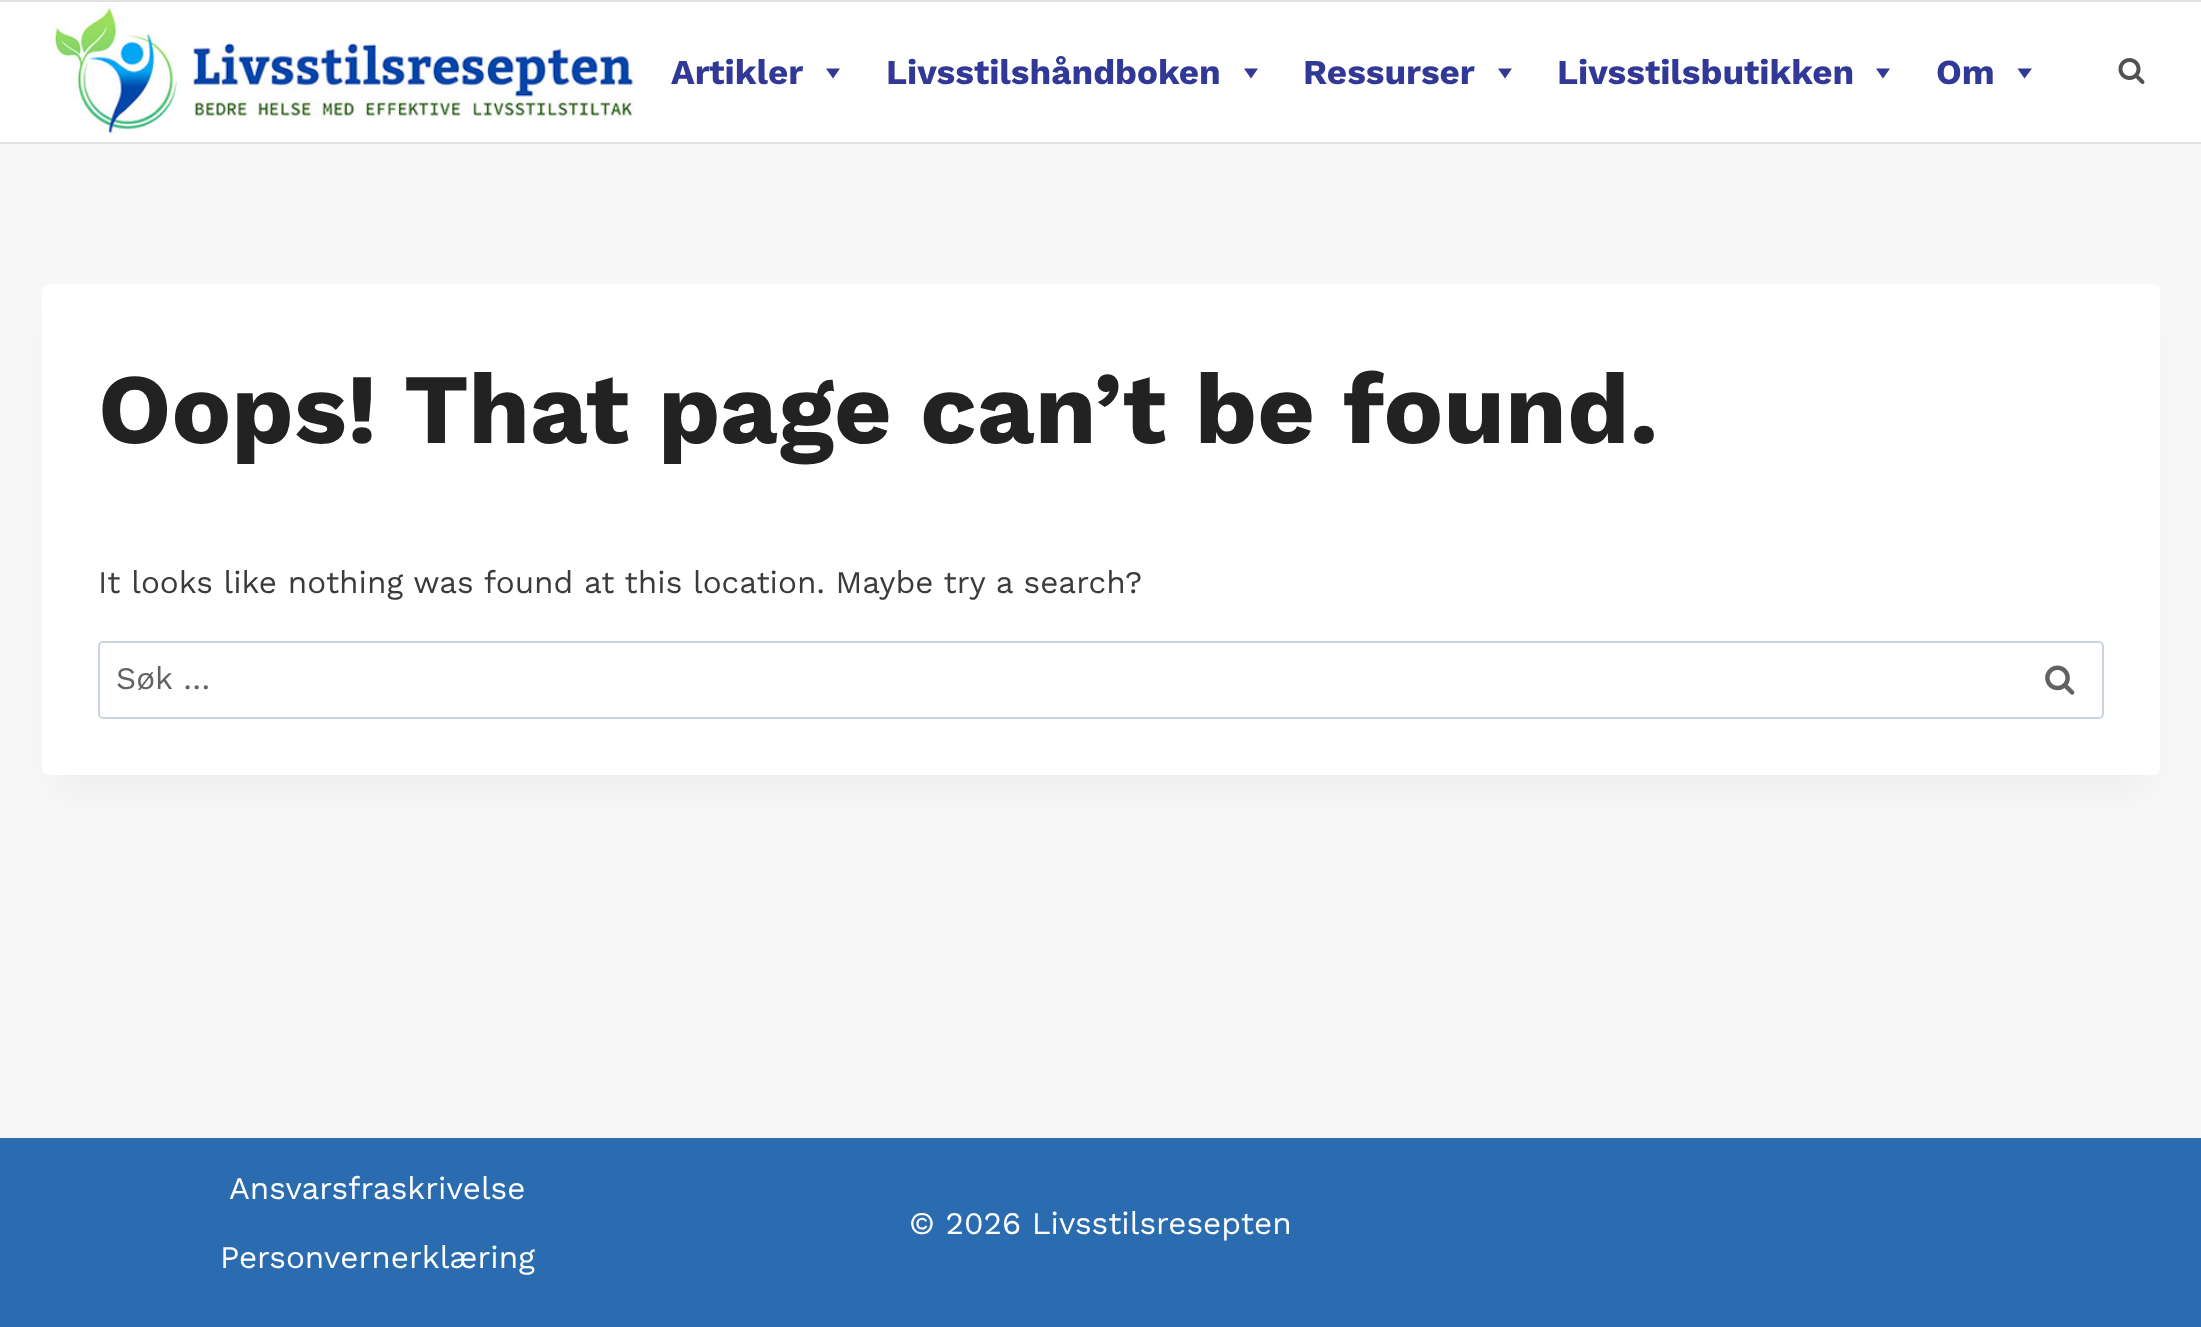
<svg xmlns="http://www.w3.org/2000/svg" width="2201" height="1327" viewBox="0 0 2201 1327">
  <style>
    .t1 { font: bold 35px Work Sans; fill: #323896; }
    .t2 { font: bold 99.75px Work Sans; fill: #222; }
    .t3 { font: 31.5px Work Sans; fill: #3b3b3b; }
    .t4 { font: 31.5px Work Sans; fill: #626262; }
    .t5 { font: 31.5px Work Sans; fill: #fff; }
  </style>
  <rect width="100%" height="100%" fill="#f7f7f7"/>
  <rect x="0" y="2" width="2201" height="140" fill="#fff"/>
  <rect x="0" y="0" width="2201" height="2" fill="#e1e1e1"/>
  <rect x="0" y="142" width="2201" height="2" fill="#e1e1e1"/>
  <image x="53" y="7" width="582" height="127" href="images/1.png"/>
  <text x="671" y="84" class="t1">Artikler</text>
  <path d="M840 68.5L833 78.5L826 68.5Z" fill="#323896"/>
  <text x="886" y="84" class="t1">Livsstilshåndboken</text>
  <path d="M1258 68.5L1251 78.5L1244 68.5Z" fill="#323896"/>
  <text x="1303" y="84" class="t1">Ressurser</text>
  <path d="M1512 68.5L1505 78.5L1498 68.5Z" fill="#323896"/>
  <text x="1557" y="84" class="t1">Livsstilsbutikken</text>
  <path d="M1890 68.5L1883 78.5L1876 68.5Z" fill="#323896"/>
  <text x="1936" y="84" class="t1">Om</text>
  <path d="M2032 68.5L2024.5 78.5L2017.5 68.5Z" fill="#323896"/>
  <image x="2118" y="58" width="27" height="26" href="images/2.png"/>
  <rect x="60" y="327" width="2082" height="457" fill="#0000000d" filter="blur(22px)"/>
  <rect x="42" y="284" width="2118" height="491" rx="7" fill="#fff"/>
  <text x="98" y="443" class="t2">Oops! That page can’t be found.</text>
  <text x="98" y="593" class="t3">It looks like nothing was found at this location. Maybe try a search?</text>
  <rect x="99" y="642" width="2004" height="76" rx="4" fill="none" stroke="#cbd5e0" stroke-width="2"/>
  <text x="116" y="689" class="t4">Søk …</text>
  <image x="2045" y="665" width="30" height="30" href="images/3.png"/>
  <rect x="0" y="1138" width="2201" height="189" fill="#2b6cb0"/>
  <text x="229" y="1199" class="t5">Ansvarsfraskrivelse</text>
  <text x="220" y="1268" class="t5">Personvernerklæring</text>
  <text x="909" y="1234" class="t5">© 2026 Livsstilsresepten</text>
</svg>
